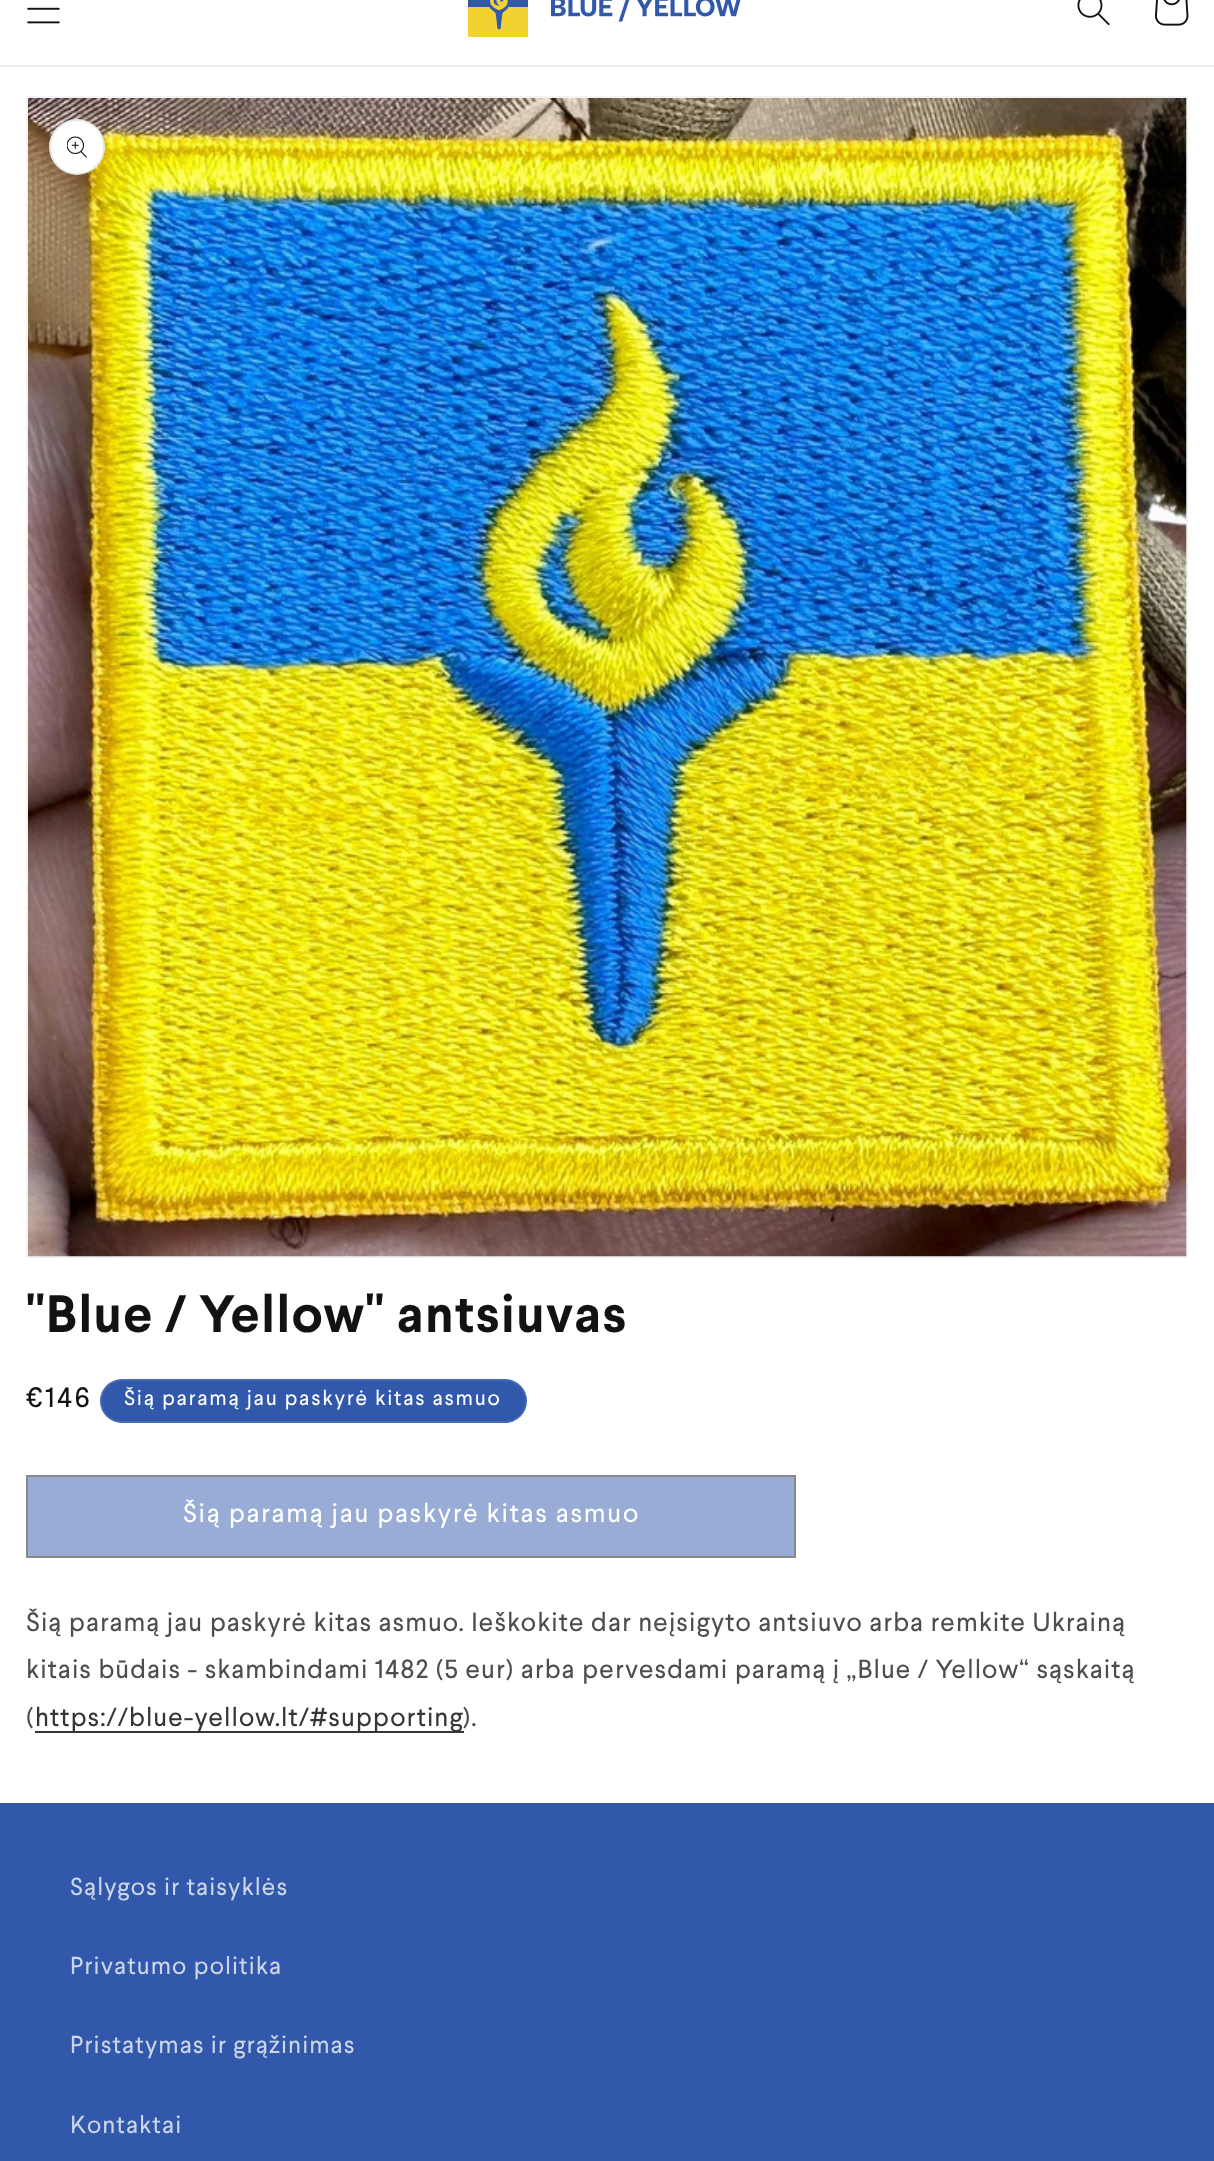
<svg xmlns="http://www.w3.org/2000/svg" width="1214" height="2161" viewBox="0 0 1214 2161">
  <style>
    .t1 { font: bold 52.5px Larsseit; letter-spacing: 1.05px; fill: #121212; }
    .t2 { font: 28px Larsseit; letter-spacing: 2.5px; fill: #121212; }
    .t3 { font: 21px Larsseit; letter-spacing: 1.75px; fill: #fff; }
    .t4 { font: 26.25px Larsseit; letter-spacing: 1.75px; fill: #fff; }
    .t5 { font: 26.25px Larsseit; letter-spacing: 1.05px; fill: #4d4d4d; }
    .t6 { font: 26.25px Larsseit; letter-spacing: 1.05px; fill: #353535; }
    .t7 { font: 24.5px Larsseit; letter-spacing: 1.05px; fill: #ccd5ea; }
  </style>
  <rect width="100%" height="100%" fill="#fff"/>
  <rect x="0" y="65" width="1214" height="2" fill="#ececec"/>
  <image x="27" y="7" width="33" height="17" href="images/1.png"/>
  <image x="468" y="0" width="273" height="37" href="images/2.png"/>
  <image x="1077" y="0" width="33" height="26" href="images/3.png"/>
  <image x="1155" y="0" width="34" height="26" href="images/4.png"/>
  <rect x="27" y="97" width="1160" height="1160" fill="none" stroke="#f3f3f3" stroke-width="2"/>
  <image x="28" y="98" width="1159" height="1159" href="images/5.png"/>
  <circle cx="77" cy="147" r="28" fill="#fff"/>
  <circle cx="77" cy="147" r="27" fill="none" stroke="#1212121a" stroke-width="2"/>
  <image x="67" y="136" width="20" height="22" href="images/6.png"/>
  <text x="26" y="1332" class="t1">"Blue / Yellow" antsiuvas</text>
  <text x="26" y="1407" class="t2">€146</text>
  <rect x="100" y="1379" width="427" height="44" rx="22" fill="#3158aa"/>
  <rect x="101" y="1380" width="425" height="42" rx="21" fill="none" stroke="#ffffff1a" stroke-width="2"/>
  <text x="124" y="1405" class="t3">Šią paramą jau paskyrė kitas asmuo</text>
  <rect x="28" y="1477" width="766" height="79" fill="#98acd5"/>
  <rect x="27" y="1476" width="768" height="81" fill="none" stroke="#898989" stroke-width="2"/>
  <text x="183" y="1522" class="t4">Šią paramą jau paskyrė kitas asmuo</text>
  <text x="26" y="1631" class="t5">Šią paramą jau paskyrė kitas asmuo. Ieškokite dar neįsigyto antsiuvo arba remkite Ukrainą</text>
  <text x="26" y="1678" class="t5">kitais būdais - skambindami 1482 (5 eur) arba pervesdami paramą į „Blue / Yellow“ sąskaitą</text>
  <text x="26" y="1726" class="t5">(</text>
  <rect x="35" y="1731" width="429" height="2" fill="#363636"/>
  <text x="35" y="1726" class="t6">https://blue-yellow.lt/#supporting</text>
  <text x="463" y="1726" class="t5">).</text>
  <rect x="0" y="1803" width="1214" height="358" fill="#3158aa"/>
  <text x="70" y="1895" class="t7">Sąlygos ir taisyklės</text>
  <text x="70" y="1974" class="t7">Privatumo politika</text>
  <text x="70" y="2053" class="t7">Pristatymas ir grąžinimas</text>
  <text x="70" y="2133" class="t7">Kontaktai</text>
</svg>
